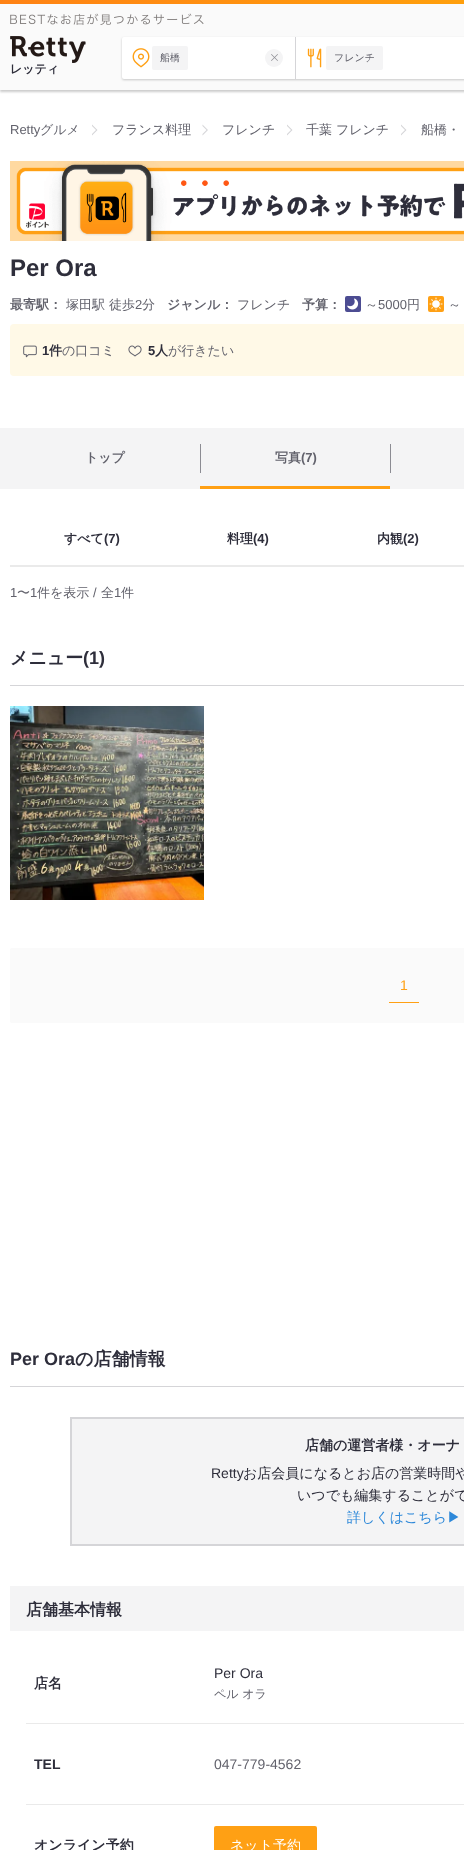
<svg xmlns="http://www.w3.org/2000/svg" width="464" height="1850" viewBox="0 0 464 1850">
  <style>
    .t1 { font: 500 10px WenQuanYi Zen Hei; fill: #62626c; }
    .t2 { font: bold 12px WenQuanYi Zen Hei; fill: #2e2e3b; }
    .t3 { font: 13px Liberation Sans; fill: #62626c; }
    .t4 { font: 500 13px WenQuanYi Zen Hei; fill: #62626c; }
    .t5 { font: bold 24px Liberation Sans; fill: #2e2e3b; }
    .t6 { font: bold 13px WenQuanYi Zen Hei; fill: #62626c; }
    .t7 { font: bold 13px Liberation Sans; fill: #2e2e3b; }
    .t8 { font: bold 13px WenQuanYi Zen Hei; fill: #2e2e3b; }
    .t9 { font: bold 13px Liberation Sans; fill: #62626c; }
    .t10 { font: bold 18px WenQuanYi Zen Hei; fill: #2e2e3b; }
    .t11 { font: bold 18px Liberation Sans; fill: #2e2e3b; }
    .t12 { font: 14px Liberation Sans; fill: #ffa014; }
    .t13 { font: bold 14px WenQuanYi Zen Hei; fill: #2e2e3b; }
    .t14 { font: 14px Liberation Sans; fill: #2e2e3b; }
    .t15 { font: 500 14px WenQuanYi Zen Hei; fill: #2e2e3b; }
    .t16 { font: 500 14px WenQuanYi Zen Hei; fill: #2d88d9; }
    .t17 { font: bold 16px WenQuanYi Zen Hei; fill: #2e2e3b; }
    .t18 { font: 500 12px WenQuanYi Zen Hei; fill: #62626c; }
    .t19 { font: bold 14px Liberation Sans; fill: #2e2e3b; }
    .t20 { font: 14px Liberation Sans; fill: #62626c; }
    .t21 { font: 500 14px WenQuanYi Zen Hei; fill: #fff; }
  </style>
  <defs>
    <linearGradient id="g1" gradientUnits="userSpaceOnUse" x1="0" y1="2" x2="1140" y2="2"><stop offset="0" stop-color="#ff8214"/><stop offset="1" stop-color="#ffca00"/></linearGradient>
  </defs>
  <rect width="100%" height="100%" fill="#fff"/>
  <rect x="0" y="2" width="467" height="90" fill="#00000033" filter="blur(1px)"/>
  <rect x="0" y="4" width="464" height="86" fill="#fafafa"/>
  <rect x="0" y="0" width="464" height="4" fill="url(#g1)"/>
  <image x="10" y="13" width="194" height="12" href="images/1.png"/>
  <rect x="122" y="38" width="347" height="42" rx="2" fill="#00000033" filter="blur(1px)"/>
  <rect x="122" y="37" width="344" height="42" rx="2" fill="#fff"/>
  <image x="132" y="48" width="18" height="20" href="images/2.png"/>
  <rect x="152" y="46" width="36" height="24" rx="2" fill="#f4f4f5"/>
  <text x="160" y="61" class="t1">船橋</text>
  <circle cx="274" cy="58" r="9" fill="#f4f4f5"/>
  <path d="M271.5 54L278 60.5L277.5 61L271 54.5Z" fill="#8c8c93"/>
  <path d="M271 60.5L277.5 54L278 54.5L271.5 61Z" fill="#8c8c93"/>
  <rect x="295" y="37" width="1" height="42" fill="#d5d5d8"/>
  <image x="307" y="48" width="15" height="20" href="images/3.png"/>
  <rect x="326" y="46" width="57" height="24" rx="2" fill="#f4f4f5"/>
  <text x="334" y="61" class="t1">フレンチ</text>
  <image x="10" y="36" width="76" height="27" href="images/4.png"/>
  <text x="10" y="73" class="t2">レッティ</text>
  <text x="10" y="134" class="t3">Retty</text>
  <text x="40" y="134" class="t4">グルメ</text>
  <path d="M92 124.5L97.5 130H96L92 126ZM97.5 130L92 135.5V134L96 130Z" fill="#d5d5d8"/>
  <text x="112" y="134" class="t4">フランス料理</text>
  <path d="M202.5 124.5L208 130H206.5L202.5 126ZM208 130L202.5 135.5V134L206.5 130Z" fill="#d5d5d8"/>
  <text x="222" y="134" class="t4">フレンチ</text>
  <path d="M287 124.5L292.5 130H291L287 126ZM292.5 130L287 135.5V134L291 130Z" fill="#d5d5d8"/>
  <text x="306" y="134" class="t4">千葉 フレンチ</text>
  <path d="M401 124.5L406.5 130H405L401 126ZM406.5 130L401 135.5V134L405 130Z" fill="#d5d5d8"/>
  <text x="421" y="134" class="t4">船橋・</text>
  <image x="10" y="161" width="454" height="80" href="images/5.png"/>
  <text x="10" y="276" class="t5">Per Ora</text>
  <text x="10" y="309" class="t6">最寄駅：</text>
  <text x="66" y="309" class="t4">塚田駅 徒歩</text>
  <text x="135" y="309" class="t3">2</text>
  <text x="142" y="309" class="t4">分</text>
  <text x="167" y="309" class="t6">ジャンル：</text>
  <text x="237" y="309" class="t4">フレンチ</text>
  <text x="302" y="309" class="t6">予算：</text>
  <rect x="345" y="296" width="16" height="16" rx="2" fill="#4c4c92"/>
  <image x="347" y="298" width="12" height="12" href="images/6.png"/>
  <text x="365" y="309" class="t4">～</text>
  <text x="378" y="309" class="t3">5000</text>
  <text x="407" y="309" class="t4">円</text>
  <rect x="428" y="296" width="16" height="16" rx="2" fill="#ffa014"/>
  <image x="429" y="297" width="14" height="14" href="images/7.png"/>
  <text x="448" y="309" class="t4">～</text>
  <rect x="10" y="324" width="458" height="52" rx="4" fill="#fff9e7"/>
  <image x="23" y="345" width="14" height="13" href="images/8.png"/>
  <text x="42" y="355" class="t7">1</text>
  <text x="49" y="355" class="t8">件</text>
  <text x="62" y="355" class="t4">の口コミ</text>
  <image x="128" y="345" width="14" height="12" href="images/9.png"/>
  <text x="148" y="355" class="t7">5</text>
  <text x="155" y="355" class="t8">人</text>
  <text x="168" y="355" class="t4">が行きたい</text>
  <rect x="0" y="428" width="464" height="61" fill="#f4f4f5"/>
  <text x="85" y="462" class="t6">トップ</text>
  <rect x="200" y="444" width="1" height="29" fill="#8c8c93"/>
  <text x="275" y="462" class="t6">写真</text>
  <text x="301" y="462" class="t9">(7)</text>
  <rect x="200" y="486" width="190" height="3" fill="#ffa014"/>
  <rect x="390" y="444" width="1" height="29" fill="#8c8c93"/>
  <rect x="10" y="565" width="454" height="2" fill="#eaeaea"/>
  <text x="64" y="543" class="t8">すべて</text>
  <text x="104" y="543" class="t7">(7)</text>
  <text x="227" y="543" class="t8">料理</text>
  <text x="253" y="543" class="t7">(4)</text>
  <text x="377" y="543" class="t8">内観</text>
  <text x="403" y="543" class="t7">(2)</text>
  <text x="10" y="597" class="t3">1</text>
  <text x="17" y="597" class="t4">〜</text>
  <text x="30" y="597" class="t3">1</text>
  <text x="37" y="597" class="t4">件を表示</text>
  <text x="93" y="597" class="t3">/</text>
  <text x="101" y="597" class="t4">全</text>
  <text x="114" y="597" class="t3">1</text>
  <text x="121" y="597" class="t4">件</text>
  <rect x="10" y="685" width="454" height="1" fill="#d5d5d8"/>
  <text x="10" y="664" class="t10">メニュー</text>
  <text x="83" y="664" class="t11">(1)</text>
  <image x="10" y="706" width="194" height="194" href="images/10.png"/>
  <rect x="10" y="948" width="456" height="75" rx="2" fill="#fafafa"/>
  <rect x="389" y="1002" width="30" height="1" fill="#ffa014"/>
  <text x="400" y="990" class="t12">1</text>
  <rect x="10" y="1386" width="454" height="1" fill="#d5d5d8"/>
  <text x="10" y="1365" class="t11">Per Ora</text>
  <text x="75" y="1365" class="t10">の店舗情報</text>
  <rect x="71" y="1418" width="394" height="127" fill="#f4f4f5" stroke="#d5d5d8" stroke-width="2"/>
  <text x="305" y="1450" class="t13">店舗の運営者様・オーナ</text>
  <text x="211" y="1478" class="t14">Retty</text>
  <text x="243" y="1478" class="t15">お店会員になるとお店の営業時間や</text>
  <text x="297" y="1500" class="t15">いつでも編集することがで</text>
  <text x="347" y="1522" class="t16">詳しくはこちら▶︎</text>
  <rect x="10" y="1586" width="454" height="45" fill="#f4f4f5"/>
  <text x="26" y="1615" class="t17">店舗基本情報</text>
  <rect x="26" y="1723" width="438" height="1" fill="#eaeaea"/>
  <text x="34" y="1688" class="t13">店名</text>
  <text x="214" y="1678" class="t14">Per Ora</text>
  <text x="214" y="1698" class="t18">ペル オラ</text>
  <rect x="26" y="1804" width="438" height="1" fill="#eaeaea"/>
  <text x="34" y="1769" class="t19">TEL</text>
  <text x="214" y="1769" class="t20">047-779-4562</text>
  <text x="34" y="1850" class="t13">オンライン予約</text>
  <rect x="214" y="1826" width="103" height="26" rx="2" fill="#ffa014"/>
  <text x="230" y="1850" class="t21">ネット予約</text>
</svg>
